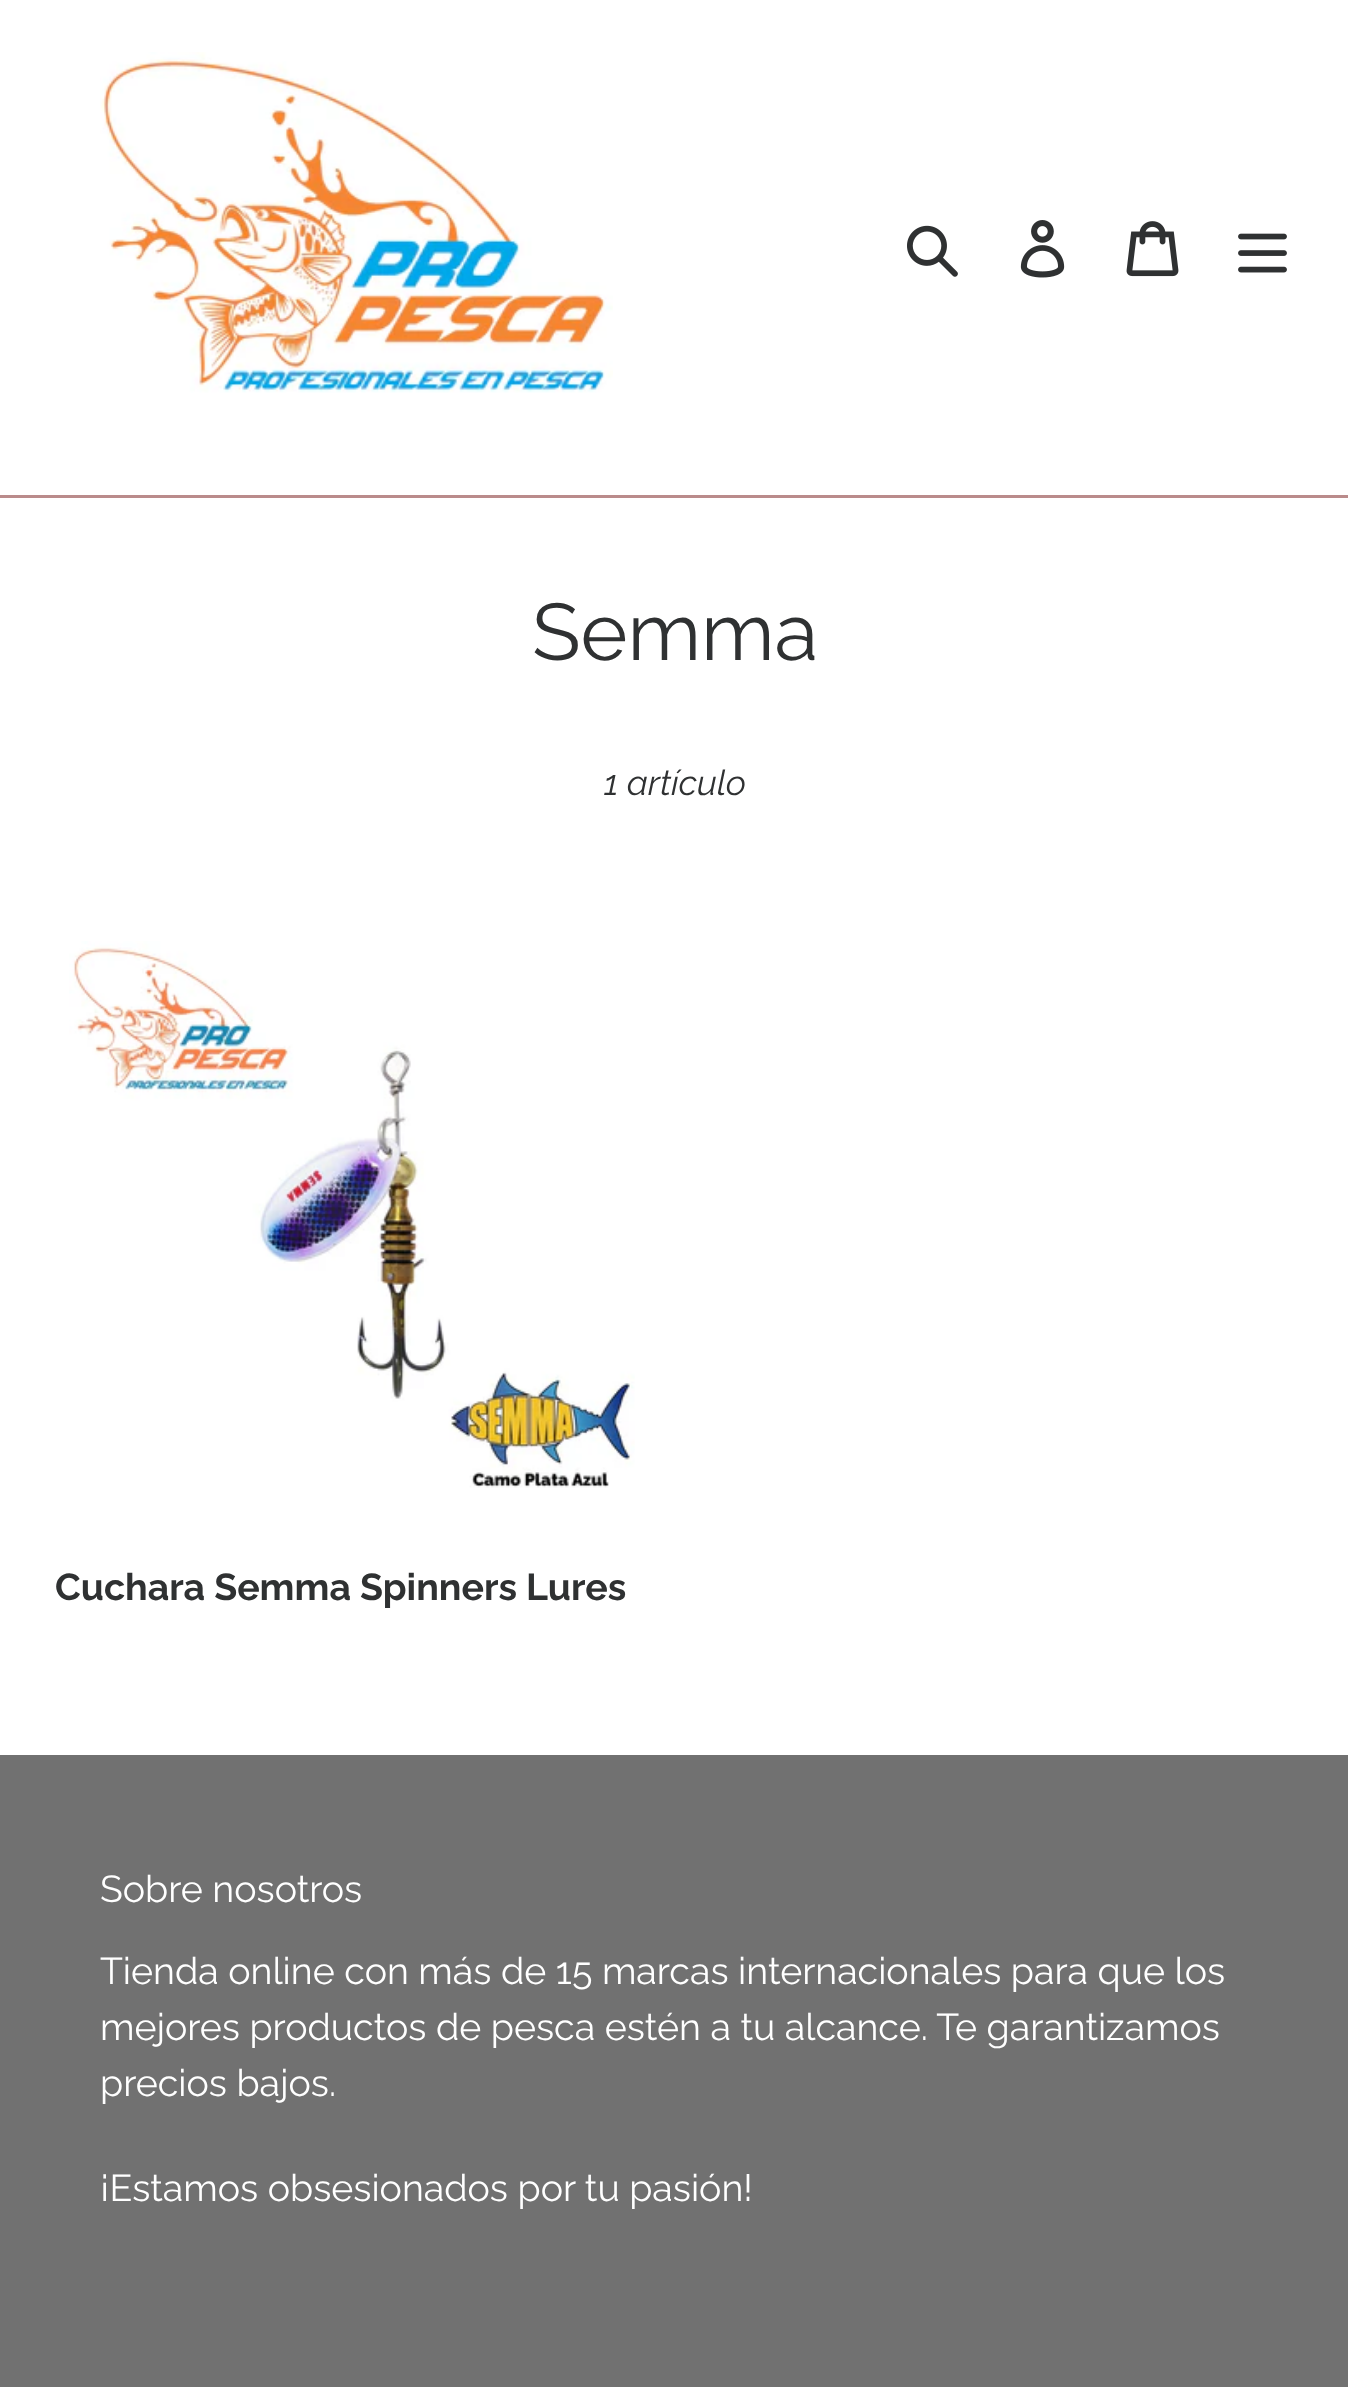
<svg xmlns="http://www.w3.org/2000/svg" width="1348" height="2387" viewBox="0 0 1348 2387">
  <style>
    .t1 { font: 80px Raleway; fill: #2f3132; }
    .t2 { font: italic 35px Raleway; fill: #2f3132; }
    .t3 { font: bold 37.5px Raleway; fill: #2f3132; }
    .t4 { font: 37.5px Raleway; fill: #fff; }
  </style>
  <rect width="100%" height="100%" fill="#fff"/>
  <rect x="0" y="495" width="1348" height="3" fill="#ba8b8b"/>
  <image x="100" y="52" width="513" height="341" href="images/1.png"/>
  <image x="907" y="225" width="51" height="52" href="images/2.png"/>
  <image x="1020" y="220" width="45" height="58" href="images/3.png"/>
  <image x="1126" y="221" width="53" height="56" href="images/4.png"/>
  <image x="1238" y="233" width="49" height="40" href="images/5.png"/>
  <text x="532" y="660" class="t1">Semma</text>
  <text x="604" y="795" class="t2">1 artículo</text>
  <image x="69" y="941" width="566" height="547" href="images/6.png"/>
  <text x="55" y="1600" class="t3">Cuchara Semma Spinners Lures</text>
  <rect x="0" y="1755" width="1348" height="632" fill="#717171"/>
  <text x="100" y="1902" class="t4">Sobre nosotros</text>
  <text x="100" y="1984" class="t4">Tienda online con más de 15 marcas internacionales para que los</text>
  <text x="100" y="2040" class="t4">mejores productos de pesca estén a tu alcance. Te garantizamos</text>
  <text x="100" y="2096" class="t4">precios bajos.</text>
  <text x="100" y="2201" class="t4">¡Estamos obsesionados por tu pasión!</text>
</svg>
